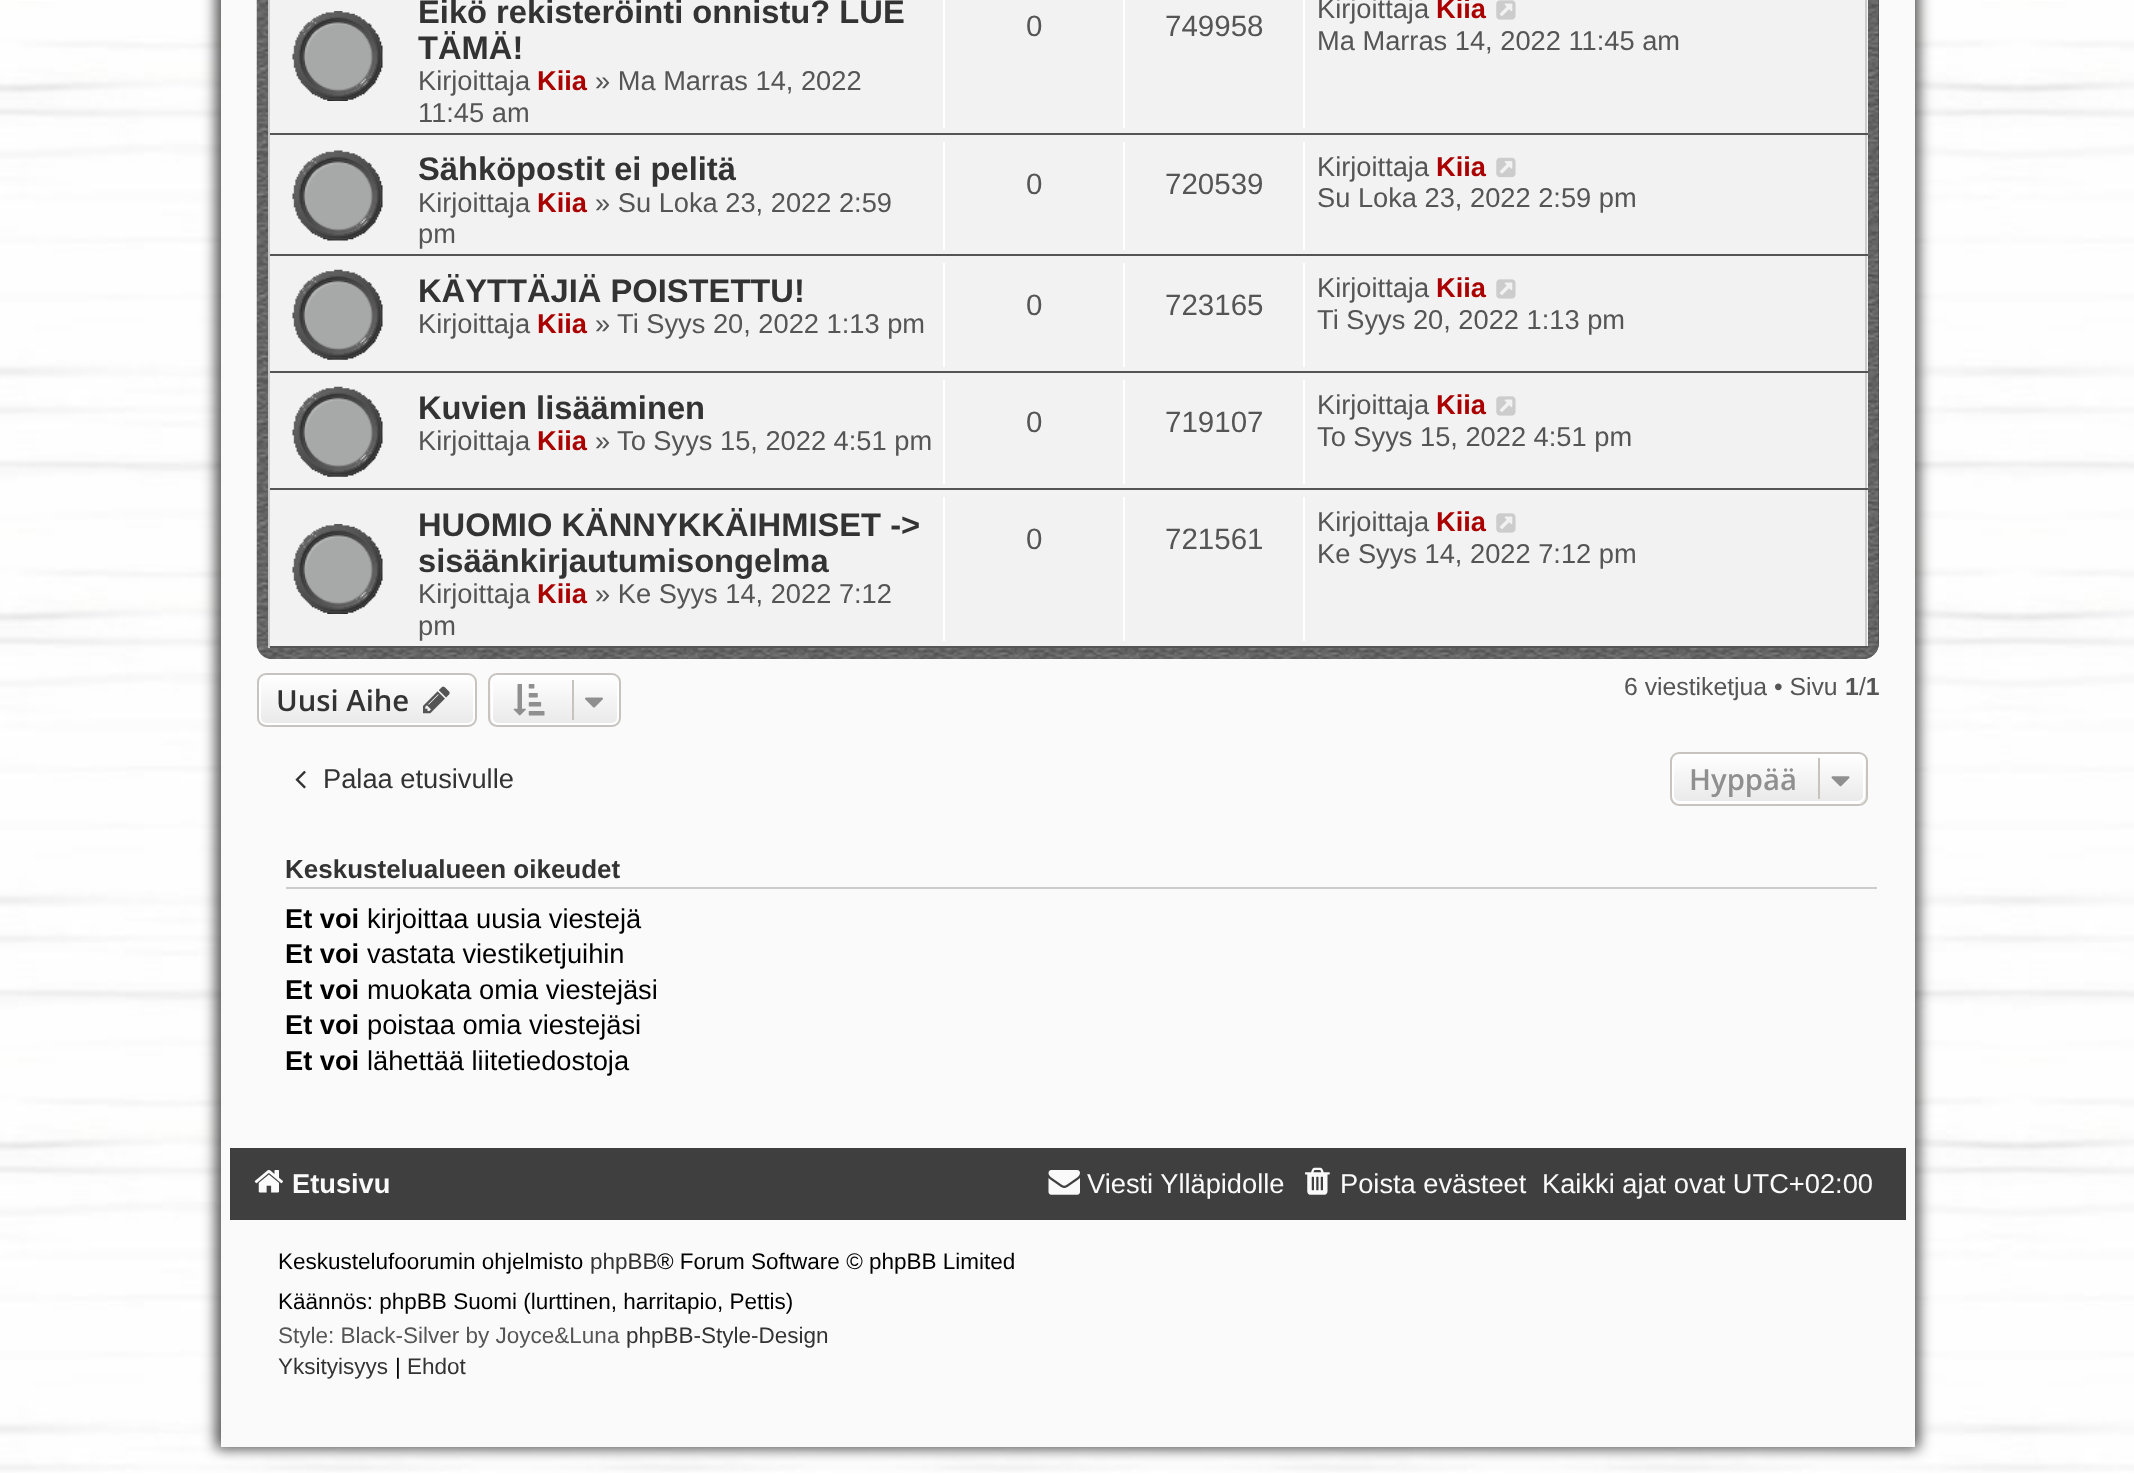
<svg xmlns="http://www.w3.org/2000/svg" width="2134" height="1474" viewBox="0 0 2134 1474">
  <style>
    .t1 { font: bold 32.7px Liberation Sans; fill: #333; }
    .t2 { font: 27.25px Liberation Sans; fill: #555; }
    .t3 { font: bold 27.25px Liberation Sans; fill: #a00; }
    .t4 { font: 29.5px Liberation Sans; fill: #555; }
    .t5 { font: 600 29.25px Open Sans; fill: #333; }
    .t6 { font: 24.75px Liberation Sans; fill: #555; }
    .t7 { font: bold 24.75px Liberation Sans; fill: #555; }
    .t8 { font: 27.25px Liberation Sans; fill: #333; }
    .t9 { font: 600 29.25px Open Sans; fill: #8f8f8f; }
    .t10 { font: bold 26px Liberation Sans; fill: #333; }
    .t11 { font: bold 27.25px Liberation Sans; fill: #000; }
    .t12 { font: 27.25px Liberation Sans; fill: #000; }
    .t13 { font: bold 27.25px Liberation Sans; fill: #fafafa; }
    .t14 { font: 27.25px Liberation Sans; fill: #fafafa; }
    .t15 { font: 22.5px Liberation Sans; fill: #000; }
    .t16 { font: 22.5px Liberation Sans; fill: #333; }
    .t17 { font: 22.5px Liberation Sans; fill: #555; }
  </style>
  <defs>
    <clipPath id="clip1"><rect x="257" y="673" width="220" height="54" rx="9"/></clipPath>
    <linearGradient id="g1" gradientUnits="userSpaceOnUse" x1="367" y1="675" x2="367" y2="725"><stop offset="0" stop-color="#fff"/><stop offset="1" stop-color="#e9e9e9"/></linearGradient>
    <clipPath id="clip2"><rect x="488" y="673" width="133" height="54" rx="9"/></clipPath>
    <linearGradient id="g2" gradientUnits="userSpaceOnUse" x1="555" y1="675" x2="555" y2="725"><stop offset="0" stop-color="#fff"/><stop offset="1" stop-color="#e9e9e9"/></linearGradient>
    <clipPath id="clip3"><rect x="1670" y="752" width="198" height="54" rx="9"/></clipPath>
    <linearGradient id="g3" gradientUnits="userSpaceOnUse" x1="1769" y1="754" x2="1769" y2="803"><stop offset="0" stop-color="#fff"/><stop offset="1" stop-color="#e9e9e9"/></linearGradient>
  </defs>
  <rect width="100%" height="100%" fill="#fff"/>
  <image x="0" y="1" width="2134" height="1472" href="images/1.png"/>
  <rect x="216" y="-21" width="1703" height="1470" fill="#020202b3" filter="blur(7px)"/>
  <rect x="221" y="0" width="1694" height="1447" fill="#fafafa"/>
  <rect x="257" y="-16" width="1622" height="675" rx="16" fill="#3f3f3f"/>
  <image x="256" y="0" width="1623" height="659" href="images/2.png"/>
  <rect x="270" y="0" width="1598" height="133" fill="#f2f2f2"/>
  <rect x="1865" y="0" width="2" height="135" fill="#ccc"/>
  <rect x="268" y="133" width="1600" height="2" fill="#555"/>
  <rect x="268" y="0" width="2" height="135" fill="#ccc"/>
  <image x="292" y="11" width="91" height="90" href="images/3.png"/>
  <text x="418" y="23" class="t1">Eikö rekisteröinti onnistu? LUE</text>
  <text x="418" y="59" class="t1">TÄMÄ!</text>
  <text x="418" y="90" class="t2">Kirjoittaja</text>
  <text x="537" y="90" class="t3">Kiia</text>
  <text x="595" y="90" class="t2">» Ma Marras 14, 2022</text>
  <text x="418" y="122" class="t2">11:45 am</text>
  <rect x="943" y="0" width="2" height="128" fill="#fff"/>
  <text x="1026" y="36" class="t4">0</text>
  <rect x="1123" y="0" width="2" height="128" fill="#fff"/>
  <text x="1165" y="36" class="t4">749958</text>
  <rect x="1303" y="0" width="2" height="128" fill="#fff"/>
  <text x="1317" y="18" class="t2">Kirjoittaja</text>
  <text x="1436" y="18" class="t3">Kiia</text>
  <image x="1496" y="0" width="20" height="20" href="images/4.png"/>
  <text x="1317" y="50" class="t2">Ma Marras 14, 2022 11:45 am</text>
  <rect x="270" y="135" width="1598" height="511" fill="#f2f2f2"/>
  <rect x="1865" y="135" width="2" height="513" fill="#ccc"/>
  <rect x="268" y="254" width="1600" height="2" fill="#555"/>
  <rect x="268" y="135" width="2" height="122" fill="#ccc"/>
  <image x="292" y="150" width="91" height="91" href="images/5.png"/>
  <text x="418" y="180" class="t1">Sähköpostit ei pelitä</text>
  <text x="418" y="212" class="t2">Kirjoittaja</text>
  <text x="537" y="212" class="t3">Kiia</text>
  <text x="595" y="212" class="t2">» Su Loka 23, 2022 2:59</text>
  <text x="418" y="243" class="t2">pm</text>
  <rect x="943" y="142" width="2" height="108" fill="#fff"/>
  <text x="1026" y="194" class="t4">0</text>
  <rect x="1123" y="142" width="2" height="108" fill="#fff"/>
  <text x="1165" y="194" class="t4">720539</text>
  <rect x="1303" y="142" width="2" height="108" fill="#fff"/>
  <text x="1317" y="176" class="t2">Kirjoittaja</text>
  <text x="1436" y="176" class="t3">Kiia</text>
  <image x="1496" y="157" width="20" height="21" href="images/6.png"/>
  <text x="1317" y="207" class="t2">Su Loka 23, 2022 2:59 pm</text>
  <rect x="268" y="371" width="1600" height="2" fill="#555"/>
  <rect x="268" y="257" width="2" height="117" fill="#ccc"/>
  <image x="292" y="269" width="91" height="91" href="images/7.png"/>
  <text x="418" y="302" class="t1">KÄYTTÄJIÄ POISTETTU!</text>
  <text x="418" y="333" class="t2">Kirjoittaja</text>
  <text x="537" y="333" class="t3">Kiia</text>
  <text x="595" y="333" class="t2">»</text>
  <text x="617" y="333" class="t2">Ti Syys 20, 2022 1:13 pm</text>
  <rect x="943" y="263" width="2" height="104" fill="#fff"/>
  <text x="1026" y="315" class="t4">0</text>
  <rect x="1123" y="263" width="2" height="104" fill="#fff"/>
  <text x="1165" y="315" class="t4">723165</text>
  <rect x="1303" y="263" width="2" height="104" fill="#fff"/>
  <text x="1317" y="297" class="t2">Kirjoittaja</text>
  <text x="1436" y="297" class="t3">Kiia</text>
  <image x="1496" y="279" width="20" height="20" href="images/4.png"/>
  <text x="1317" y="329" class="t2">Ti Syys 20, 2022 1:13 pm</text>
  <rect x="268" y="488" width="1600" height="2" fill="#555"/>
  <rect x="268" y="374" width="2" height="117" fill="#ccc"/>
  <image x="292" y="386" width="91" height="91" href="images/8.png"/>
  <text x="418" y="419" class="t1">Kuvien lisääminen</text>
  <text x="418" y="450" class="t2">Kirjoittaja</text>
  <text x="537" y="450" class="t3">Kiia</text>
  <text x="595" y="450" class="t2">»</text>
  <text x="617" y="450" class="t2">To Syys 15, 2022 4:51 pm</text>
  <rect x="943" y="380" width="2" height="104" fill="#fff"/>
  <text x="1026" y="432" class="t4">0</text>
  <rect x="1123" y="380" width="2" height="104" fill="#fff"/>
  <text x="1165" y="432" class="t4">719107</text>
  <rect x="1303" y="380" width="2" height="104" fill="#fff"/>
  <text x="1317" y="414" class="t2">Kirjoittaja</text>
  <text x="1436" y="414" class="t3">Kiia</text>
  <image x="1496" y="396" width="20" height="20" href="images/4.png"/>
  <text x="1317" y="446" class="t2">To Syys 15, 2022 4:51 pm</text>
  <rect x="268" y="646" width="1600" height="2" fill="#555"/>
  <rect x="268" y="491" width="2" height="157" fill="#ccc"/>
  <image x="292" y="524" width="91" height="90" href="images/9.png"/>
  <text x="418" y="536" class="t1">HUOMIO KÄNNYKKÄIHMISET -&gt;</text>
  <text x="418" y="572" class="t1">sisäänkirjautumisongelma</text>
  <text x="418" y="603" class="t2">Kirjoittaja</text>
  <text x="537" y="603" class="t3">Kiia</text>
  <text x="595" y="603" class="t2">» Ke Syys 14, 2022 7:12</text>
  <text x="418" y="635" class="t2">pm</text>
  <rect x="943" y="497" width="2" height="144" fill="#fff"/>
  <text x="1026" y="549" class="t4">0</text>
  <rect x="1123" y="497" width="2" height="144" fill="#fff"/>
  <text x="1165" y="549" class="t4">721561</text>
  <rect x="1303" y="497" width="2" height="144" fill="#fff"/>
  <text x="1317" y="531" class="t2">Kirjoittaja</text>
  <text x="1436" y="531" class="t3">Kiia</text>
  <image x="1496" y="513" width="20" height="20" href="images/4.png"/>
  <text x="1317" y="563" class="t2">Ke Syys 14, 2022 7:12 pm</text>
  <g clip-path="url(#clip1)">
    <rect x="257" y="675" width="220" height="50" fill="url(#g1)"/>
  </g>
  <rect x="260" y="676" width="214" height="48" rx="6" fill="none" stroke="#fff" stroke-width="2"/>
  <rect x="258" y="674" width="218" height="52" rx="8" fill="none" stroke="#c7c3bf" stroke-width="2"/>
  <text x="276" y="711" class="t5">Uusi Aihe</text>
  <image x="423" y="686" width="27" height="28" href="images/10.png"/>
  <g clip-path="url(#clip2)">
    <rect x="488" y="675" width="133" height="50" fill="url(#g2)"/>
  </g>
  <rect x="492" y="676" width="126" height="48" rx="6" fill="none" stroke="#fff" stroke-width="2"/>
  <rect x="489" y="674" width="131" height="52" rx="8" fill="none" stroke="#c7c3bf" stroke-width="2"/>
  <image x="513" y="684" width="32" height="32" href="images/11.png"/>
  <rect x="572" y="680" width="2" height="40" fill="#c7c3bf"/>
  <image x="585" y="697" width="18" height="11" href="images/12.png"/>
  <text x="1624" y="695" class="t6">6 viestiketjua • Sivu</text>
  <text x="1845" y="695" class="t7">1 1</text>
  <text x="1859" y="695" class="t6">/</text>
  <image x="295" y="770" width="11" height="19" href="images/13.png"/>
  <text x="323" y="788" class="t8">Palaa etusivulle</text>
  <rect x="1670" y="752" width="198" height="54" rx="9" fill="#fff"/>
  <g clip-path="url(#clip3)">
    <rect x="1670" y="754" width="198" height="49" fill="url(#g3)"/>
  </g>
  <rect x="1673" y="755" width="191" height="47" rx="6" fill="none" stroke="#fff" stroke-width="2"/>
  <rect x="1671" y="753" width="196" height="52" rx="8" fill="none" stroke="#c7c3bf" stroke-width="2"/>
  <text x="1689" y="790" class="t9">Hyppää</text>
  <rect x="1818" y="758" width="2" height="41" fill="#c7c3bf"/>
  <image x="1831" y="776" width="19" height="11" href="images/14.png"/>
  <rect x="286" y="887" width="1591" height="2" fill="#ccc"/>
  <text x="285" y="878" class="t10">Keskustelualueen oikeudet</text>
  <text x="285" y="928" class="t11">Et voi</text>
  <text x="367" y="928" class="t12">kirjoittaa uusia viestejä</text>
  <text x="285" y="963" class="t11">Et voi</text>
  <text x="367" y="963" class="t12">vastata viestiketjuihin</text>
  <text x="285" y="999" class="t11">Et voi</text>
  <text x="367" y="999" class="t12">muokata omia viestejäsi</text>
  <text x="285" y="1034" class="t11">Et voi</text>
  <text x="367" y="1034" class="t12">poistaa omia viestejäsi</text>
  <text x="285" y="1070" class="t11">Et voi</text>
  <text x="367" y="1070" class="t12">lähettää liitetiedostoja</text>
  <rect x="230" y="1148" width="1676" height="72" fill="#3f3f3f"/>
  <image x="254" y="1170" width="29" height="23" href="images/15.png"/>
  <text x="292" y="1193" class="t13">Etusivu</text>
  <image x="1048" y="1170" width="32" height="25" href="images/16.png"/>
  <text x="1087" y="1193" class="t14">Viesti Ylläpidolle</text>
  <image x="1305" y="1167" width="25" height="28" href="images/17.png"/>
  <text x="1340" y="1193" class="t14">Poista evästeet</text>
  <text x="1542" y="1193" class="t14">Kaikki ajat ovat UTC+02:00</text>
  <text x="278" y="1269" class="t15">Keskustelufoorumin ohjelmisto</text>
  <text x="590" y="1269" class="t16">phpBB</text>
  <text x="657" y="1269" class="t15">® Forum Software © phpBB Limited</text>
  <text x="278" y="1309" class="t15">Käännös: phpBB Suomi (lurttinen, harritapio, Pettis)</text>
  <text x="278" y="1343" class="t17">Style: Black-Silver by Joyce&amp;Luna</text>
  <text x="626" y="1343" class="t16">phpBB-Style-Design</text>
  <text x="278" y="1374" class="t16">Yksityisyys</text>
  <text x="395" y="1374" class="t15">|</text>
  <text x="407" y="1374" class="t16">Ehdot</text>
</svg>
